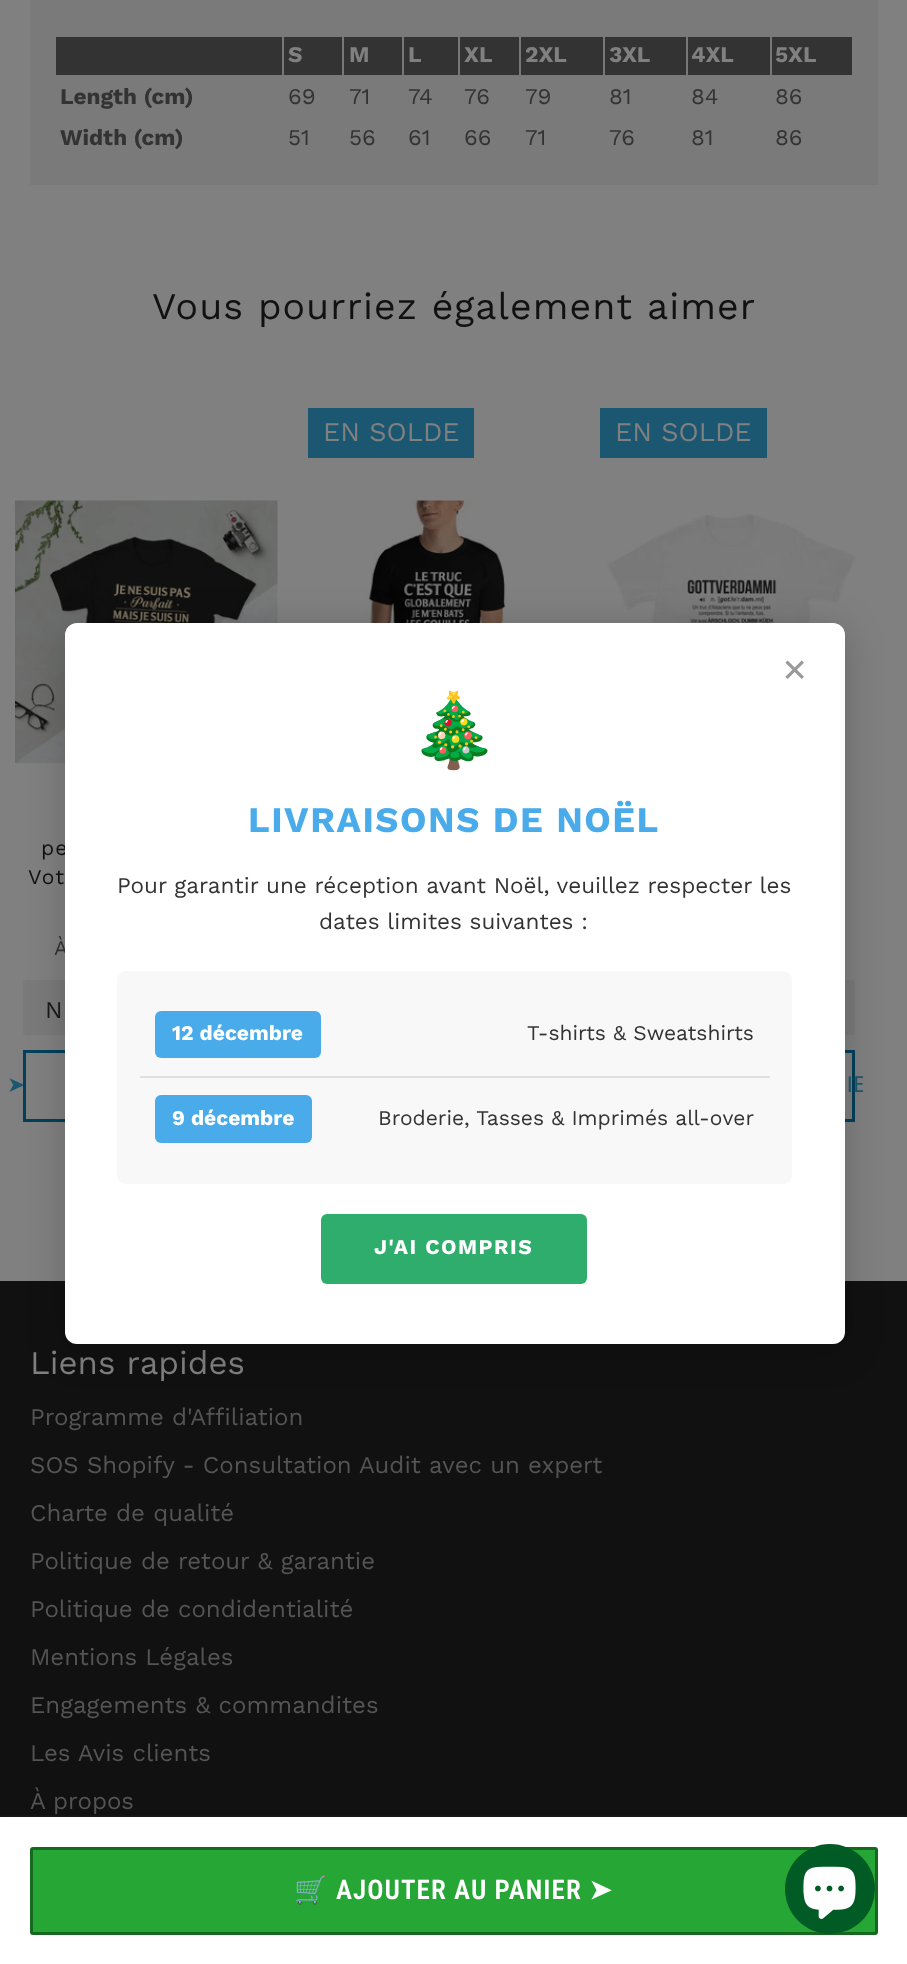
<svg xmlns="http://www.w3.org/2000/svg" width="907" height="1964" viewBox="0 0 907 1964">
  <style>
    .t1 { font: bold 22.5px Work Sans; fill: #808080; }
    .t2 { font: bold 22.5px Work Sans; fill: #333; }
    .t3 { font: 22.5px Work Sans; fill: #333; }
    .t4 { font: bold 27px Noto Color Emoji; letter-spacing: 1.05px; fill: #fff; }
    .t5 { font: 600 27px Roboto Condensed; letter-spacing: 1.05px; fill: #fff; }
    .t6 { font: bold 27px DejaVu Sans; letter-spacing: 1.05px; fill: #fff; }
    .t7 { font: 37.5px Work Sans; letter-spacing: 1.05px; fill: #111; }
    .t8 { font: 21px Work Sans; letter-spacing: 1.05px; fill: #111; }
    .t9 { font: 21px Work Sans; fill: #333; }
    .t10 { font: 24px Work Sans; fill: #1a1a1a; }
    .t11 { font: 22px DejaVu Sans; letter-spacing: 1.05px; fill: #1c5771; }
    .t12 { font: 27px Work Sans; fill: #808080; }
    .t13 { font: 22px Roboto Condensed; letter-spacing: 1.05px; fill: #1c5771; }
    .t14 { font: 33px Work Sans; fill: #808080; }
    .t15 { font: 24px Work Sans; fill: #545454; }
    .t16 { font: 42px Work Sans; fill: #999; }
    .t17 { font: 72px Noto Color Emoji; fill: #666; }
    .t18 { font: bold 36px Work Sans; letter-spacing: 1.5px; fill: #4aabeb; }
    .t19 { font: bold 21px Work Sans; fill: #fff; }
    .t20 { font: bold 21px Work Sans; letter-spacing: 1.5px; fill: #fff; }
  </style>
  <defs>
    <clipPath id="clip1"><rect x="0" y="408" width="863" height="759"/></clipPath>
  </defs>
  <rect width="100%" height="100%" fill="#808080"/>
  <rect x="30" y="0" width="848" height="185" fill="#7a7a7a"/>
  <rect x="56" y="37" width="796" height="38" fill="#333"/>
  <rect x="282" y="35" width="2" height="42" fill="#787878"/>
  <text x="288" y="62" class="t1">S</text>
  <rect x="342" y="35" width="2" height="42" fill="#787878"/>
  <text x="349" y="62" class="t1">M</text>
  <rect x="402" y="35" width="2" height="42" fill="#787878"/>
  <text x="408" y="62" class="t1">L</text>
  <rect x="458" y="35" width="2" height="42" fill="#787878"/>
  <text x="464" y="62" class="t1">XL</text>
  <rect x="519" y="35" width="2" height="42" fill="#787878"/>
  <text x="525" y="62" class="t1">2XL</text>
  <rect x="603" y="35" width="2" height="42" fill="#787878"/>
  <text x="609" y="62" class="t1">3XL</text>
  <rect x="686" y="35" width="2" height="42" fill="#787878"/>
  <text x="691" y="62" class="t1">4XL</text>
  <rect x="770" y="35" width="2" height="42" fill="#787878"/>
  <text x="775" y="62" class="t1">5XL</text>
  <text x="60" y="104" class="t2">Length (cm)</text>
  <text x="288" y="104" class="t3">69</text>
  <text x="349" y="104" class="t3">71</text>
  <text x="408" y="104" class="t3">74</text>
  <text x="464" y="104" class="t3">76</text>
  <text x="525" y="104" class="t3">79</text>
  <text x="609" y="104" class="t3">81</text>
  <text x="691" y="104" class="t3">84</text>
  <text x="775" y="104" class="t3">86</text>
  <text x="60" y="145" class="t2">Width (cm)</text>
  <text x="288" y="145" class="t3">51</text>
  <text x="349" y="145" class="t3">56</text>
  <text x="408" y="145" class="t3">61</text>
  <text x="464" y="145" class="t3">66</text>
  <text x="525" y="145" class="t3">71</text>
  <text x="609" y="145" class="t3">76</text>
  <text x="691" y="145" class="t3">81</text>
  <text x="775" y="145" class="t3">86</text>
  <rect x="0" y="1281" width="907" height="536" fill="#111"/>
  <rect x="0" y="1821" width="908" height="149" fill="#666" filter="blur(3px)"/>
  <rect x="0" y="1817" width="907" height="147" fill="#fff"/>
  <rect x="31.5" y="1848.5" width="845" height="85" rx="1.5" fill="#26a634" stroke="#16671f" stroke-width="3"/>
  <text x="294" y="1899" class="t4">🛒</text>
  <text x="336" y="1899" class="t5">AJOUTER AU PANIER</text>
  <text x="589" y="1899" class="t6">➤</text>
  <text x="152" y="319" class="t7">Vous pourriez également aimer</text>
  <image x="15" y="500" width="263" height="264" href="images/1.png"/>
  <text x="41" y="855" class="t8">pe</text>
  <text x="28" y="884" class="t8">Vot</text>
  <text x="54" y="955" class="t9">À</text>
  <rect x="23" y="980" width="247" height="55" rx="3" fill="#7a7a7a"/>
  <text x="45" y="1018" class="t10">N</text>
  <text x="7" y="1092" class="t11">➤</text>
  <rect x="24.5" y="1051.5" width="244" height="69" fill="none" stroke="#03405b" stroke-width="3"/>
  <rect x="308" y="408" width="166" height="50" fill="#1c5771"/>
  <text x="323" y="441" class="t12">EN SOLDE</text>
  <image x="366" y="500" width="141" height="123" href="images/2.png"/>
  <rect x="600" y="408" width="167" height="50" fill="#1c5771"/>
  <text x="615" y="441" class="t12">EN SOLDE</text>
  <image x="607" y="514" width="249" height="239" href="images/3.png"/>
  <rect x="608" y="980" width="247" height="55" rx="3" fill="#7a7a7a"/>
  <rect x="609.5" y="1051.5" width="244" height="69" fill="none" stroke="#03405b" stroke-width="3"/>
  <g clip-path="url(#clip1)">
    <text x="847" y="1092" class="t13">IE</text>
  </g>
  <text x="30" y="1374" class="t14">Liens rapides</text>
  <text x="30" y="1425" class="t15">Programme d'Affiliation</text>
  <text x="30" y="1473" class="t15">SOS Shopify - Consultation Audit avec un expert</text>
  <text x="30" y="1521" class="t15">Charte de qualité</text>
  <text x="30" y="1569" class="t15">Politique de retour &amp; garantie</text>
  <text x="30" y="1617" class="t15">Politique de condidentialité</text>
  <text x="30" y="1665" class="t15">Mentions Légales</text>
  <text x="30" y="1713" class="t15">Engagements &amp; commandites</text>
  <text x="30" y="1761" class="t15">Les Avis clients</text>
  <text x="30" y="1809" class="t15">À propos</text>
  <rect x="65" y="629" width="780" height="721" rx="12" fill="#00000033" filter="blur(19px)"/>
  <rect x="65" y="623" width="780" height="721" rx="12" fill="#fff"/>
  <text x="782" y="683" class="t16">×</text>
  <text x="409" y="755" class="t17">🎄</text>
  <text x="248" y="832" class="t18">LIVRAISONS DE NOËL</text>
  <text x="117" y="893" class="t3">Pour garantir une réception avant Noël, veuillez respecter les</text>
  <text x="319" y="929" class="t3">dates limites suivantes :</text>
  <rect x="117" y="971" width="675" height="213" rx="9" fill="#f8f8f8"/>
  <rect x="140" y="1076" width="630" height="2" fill="#e0e0e0"/>
  <rect x="155" y="1011" width="166" height="47" rx="6" fill="#4aabeb"/>
  <text x="172" y="1040" class="t19">12 décembre</text>
  <text x="527" y="1040" class="t9">T-shirts &amp; Sweatshirts</text>
  <rect x="155" y="1095" width="157" height="48" rx="6" fill="#4aabeb"/>
  <text x="172" y="1125" class="t19">9 décembre</text>
  <text x="378" y="1125" class="t9">Broderie, Tasses &amp; Imprimés all-over</text>
  <rect x="321" y="1214" width="266" height="70" rx="6" fill="#2ead6d"/>
  <text x="374" y="1254" class="t20">J'AI COMPRIS</text>
  <circle cx="830" cy="1889" r="45" fill="#005b25"/>
  <image x="803" y="1866" width="53" height="53" href="images/4.png"/>
</svg>
